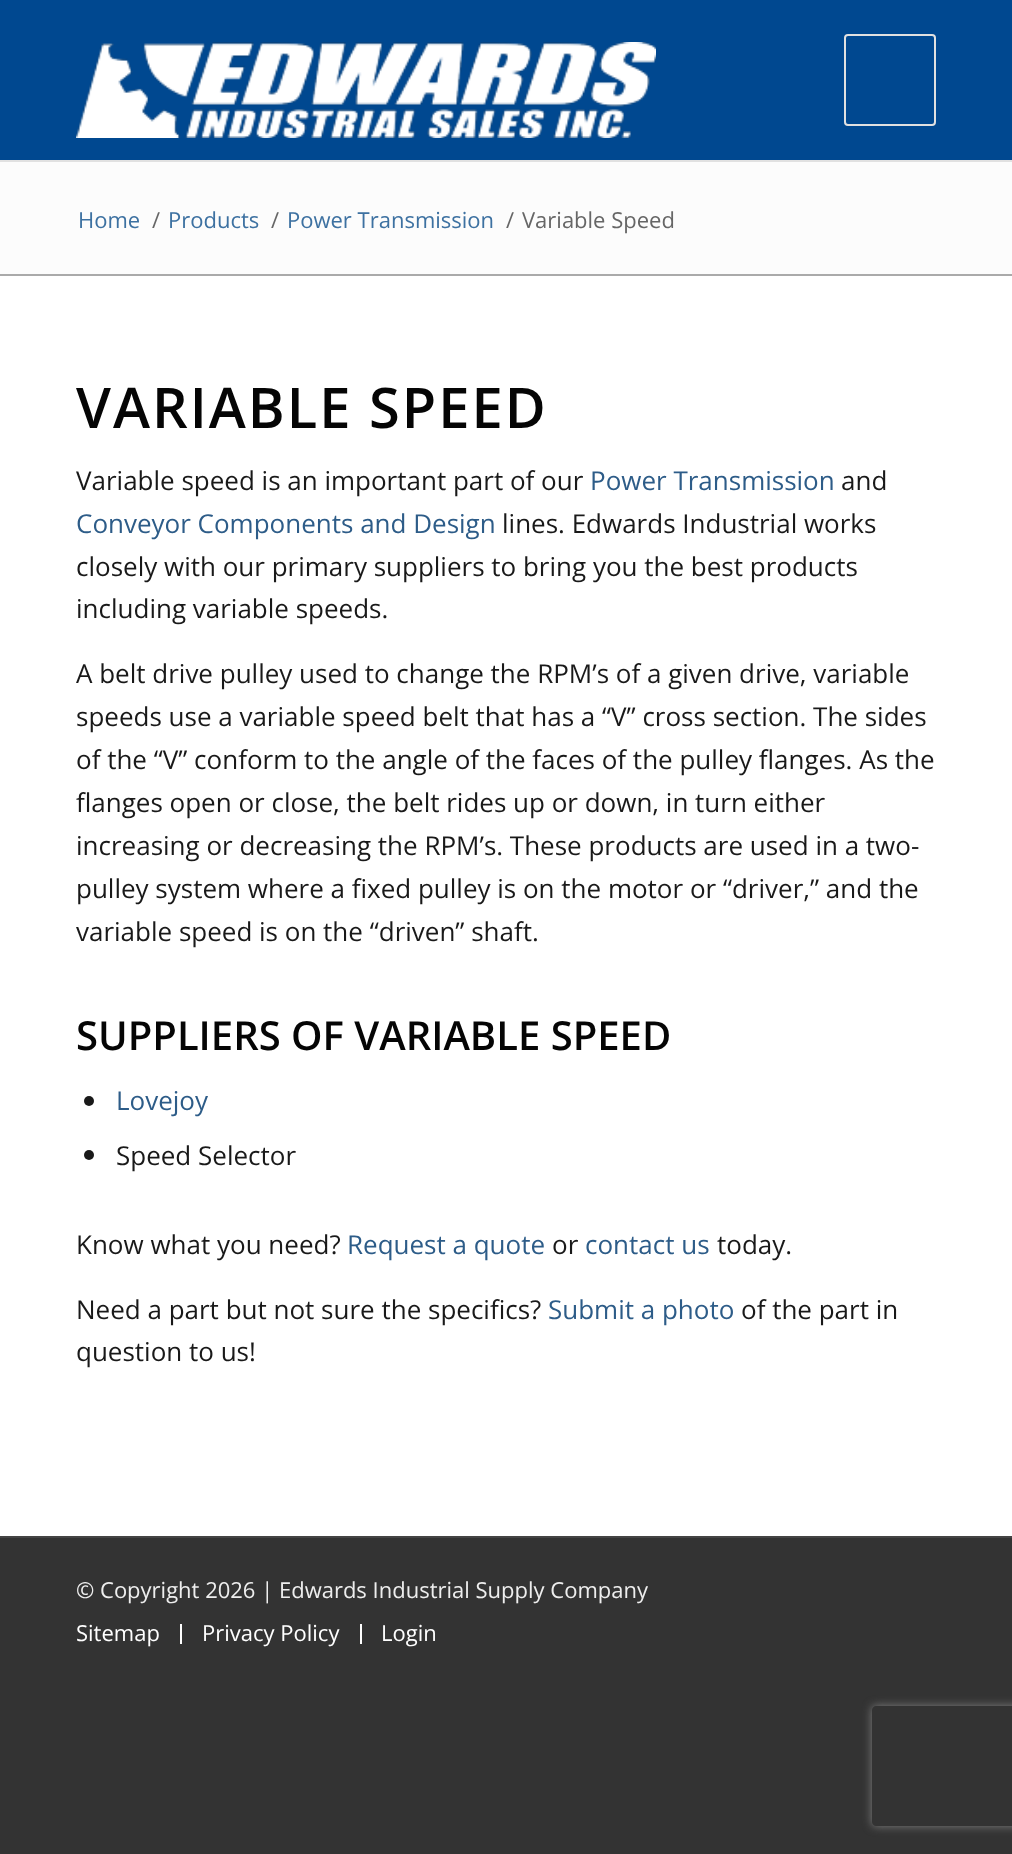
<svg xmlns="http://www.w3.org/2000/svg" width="1012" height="1854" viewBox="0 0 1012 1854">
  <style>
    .t1 { font: 22px Open Sans; fill: #3d71a1; }
    .t2 { font: 22px Open Sans; fill: #666; }
    .t3 { font: 600 56px Open Sans; letter-spacing: 2px; fill: #050505; }
    .t4 { font: 26px Open Sans; fill: #191919; }
    .t5 { font: 26px Open Sans; fill: #2d5c88; }
    .t6 { font: 600 40px Open Sans; fill: #050505; }
    .t7 { font: 22px Open Sans; fill: #eee; }
    .t8 { font: 22px Open Sans; fill: #fff; }
  </style>
  <defs>
    <clipPath id="clip1"><path d="M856 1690H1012V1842H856ZM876 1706H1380C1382 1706 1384 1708 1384 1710V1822C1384 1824 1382 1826 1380 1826H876C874 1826 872 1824 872 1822V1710C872 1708 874 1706 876 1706Z" clip-rule="evenodd"/></clipPath>
  </defs>
  <rect width="100%" height="100%" fill="#333"/>
  <rect x="0" y="0" width="1012" height="160" fill="#004890"/>
  <rect x="0" y="160" width="1012" height="2" fill="#e1e1e1"/>
  <image x="76" y="42" width="580" height="96" href="images/1.png"/>
  <rect x="845" y="35" width="90" height="90" rx="3" fill="none" stroke="#e1e1e1" stroke-width="2"/>
  <rect x="0" y="162" width="1012" height="112" fill="#fcfcfc"/>
  <text x="78" y="228" class="t1">Home</text>
  <text x="152" y="228" class="t2">/</text>
  <text x="168" y="228" class="t1">Products</text>
  <text x="271" y="228" class="t2">/</text>
  <text x="287" y="228" class="t1">Power Transmission</text>
  <text x="506" y="228" class="t2">/</text>
  <text x="522" y="228" class="t2">Variable Speed</text>
  <rect x="0" y="276" width="1012" height="1260" fill="#fff"/>
  <rect x="0" y="274" width="1012" height="2" fill="#aaa"/>
  <text x="76" y="428" class="t3">VARIABLE SPEED</text>
  <text x="76" y="490" class="t4">Variable speed is an important part of our</text>
  <text x="590" y="490" class="t5">Power Transmission</text>
  <text x="841" y="490" class="t4">and</text>
  <text x="76" y="533" class="t5">Conveyor Components and Design</text>
  <text x="502" y="533" class="t4">lines. Edwards Industrial works</text>
  <text x="76" y="576" class="t4">closely with our primary suppliers to bring you the best products</text>
  <text x="76" y="618" class="t4">including variable speeds.</text>
  <text x="76" y="683" class="t4">A belt drive pulley used to change the RPM’s of a given drive, variable</text>
  <text x="76" y="726" class="t4">speeds use a variable speed belt that has a “V” cross section. The sides</text>
  <text x="76" y="769" class="t4">of the “V” conform to the angle of the faces of the pulley flanges. As the</text>
  <text x="76" y="812" class="t4">flanges open or close, the belt rides up or down, in turn either</text>
  <text x="76" y="855" class="t4">increasing or decreasing the RPM’s. These products are used in a two-</text>
  <text x="76" y="898" class="t4">pulley system where a fixed pulley is on the motor or “driver,” and the</text>
  <text x="76" y="941" class="t4">variable speed is on the “driven” shaft.</text>
  <text x="76" y="1050" class="t6">SUPPLIERS OF VARIABLE SPEED</text>
  <circle cx="89" cy="1101" r="5" fill="#191919"/>
  <text x="116" y="1110" class="t5">Lovejoy</text>
  <circle cx="89" cy="1155" r="5" fill="#191919"/>
  <text x="116" y="1165" class="t4">Speed Selector</text>
  <text x="76" y="1254" class="t4">Know what you need?</text>
  <text x="347" y="1254" class="t5">Request a quote</text>
  <text x="552" y="1254" class="t4">or</text>
  <text x="585" y="1254" class="t5">contact us</text>
  <text x="717" y="1254" class="t4">today.</text>
  <text x="76" y="1319" class="t4">Need a part but not sure the specifics?</text>
  <text x="548" y="1319" class="t5">Submit a photo</text>
  <text x="741" y="1319" class="t4">of the part in</text>
  <text x="76" y="1361" class="t4">question to us!</text>
  <rect x="0" y="1536" width="1012" height="2" fill="#444"/>
  <text x="76" y="1598" class="t7">© Copyright 2026 | Edwards Industrial Supply Company</text>
  <text x="76" y="1641" class="t8">Sitemap</text>
  <rect x="180" y="1624" width="2" height="20" fill="#fff"/>
  <text x="202" y="1641" class="t8">Privacy Policy</text>
  <rect x="360" y="1624" width="2" height="20" fill="#fff"/>
  <text x="381" y="1641" class="t8">Login</text>
  <g clip-path="url(#clip1)">
    <rect x="872" y="1706" width="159" height="120" rx="4" fill="#808080" filter="blur(5px)"/>
  </g>
</svg>
